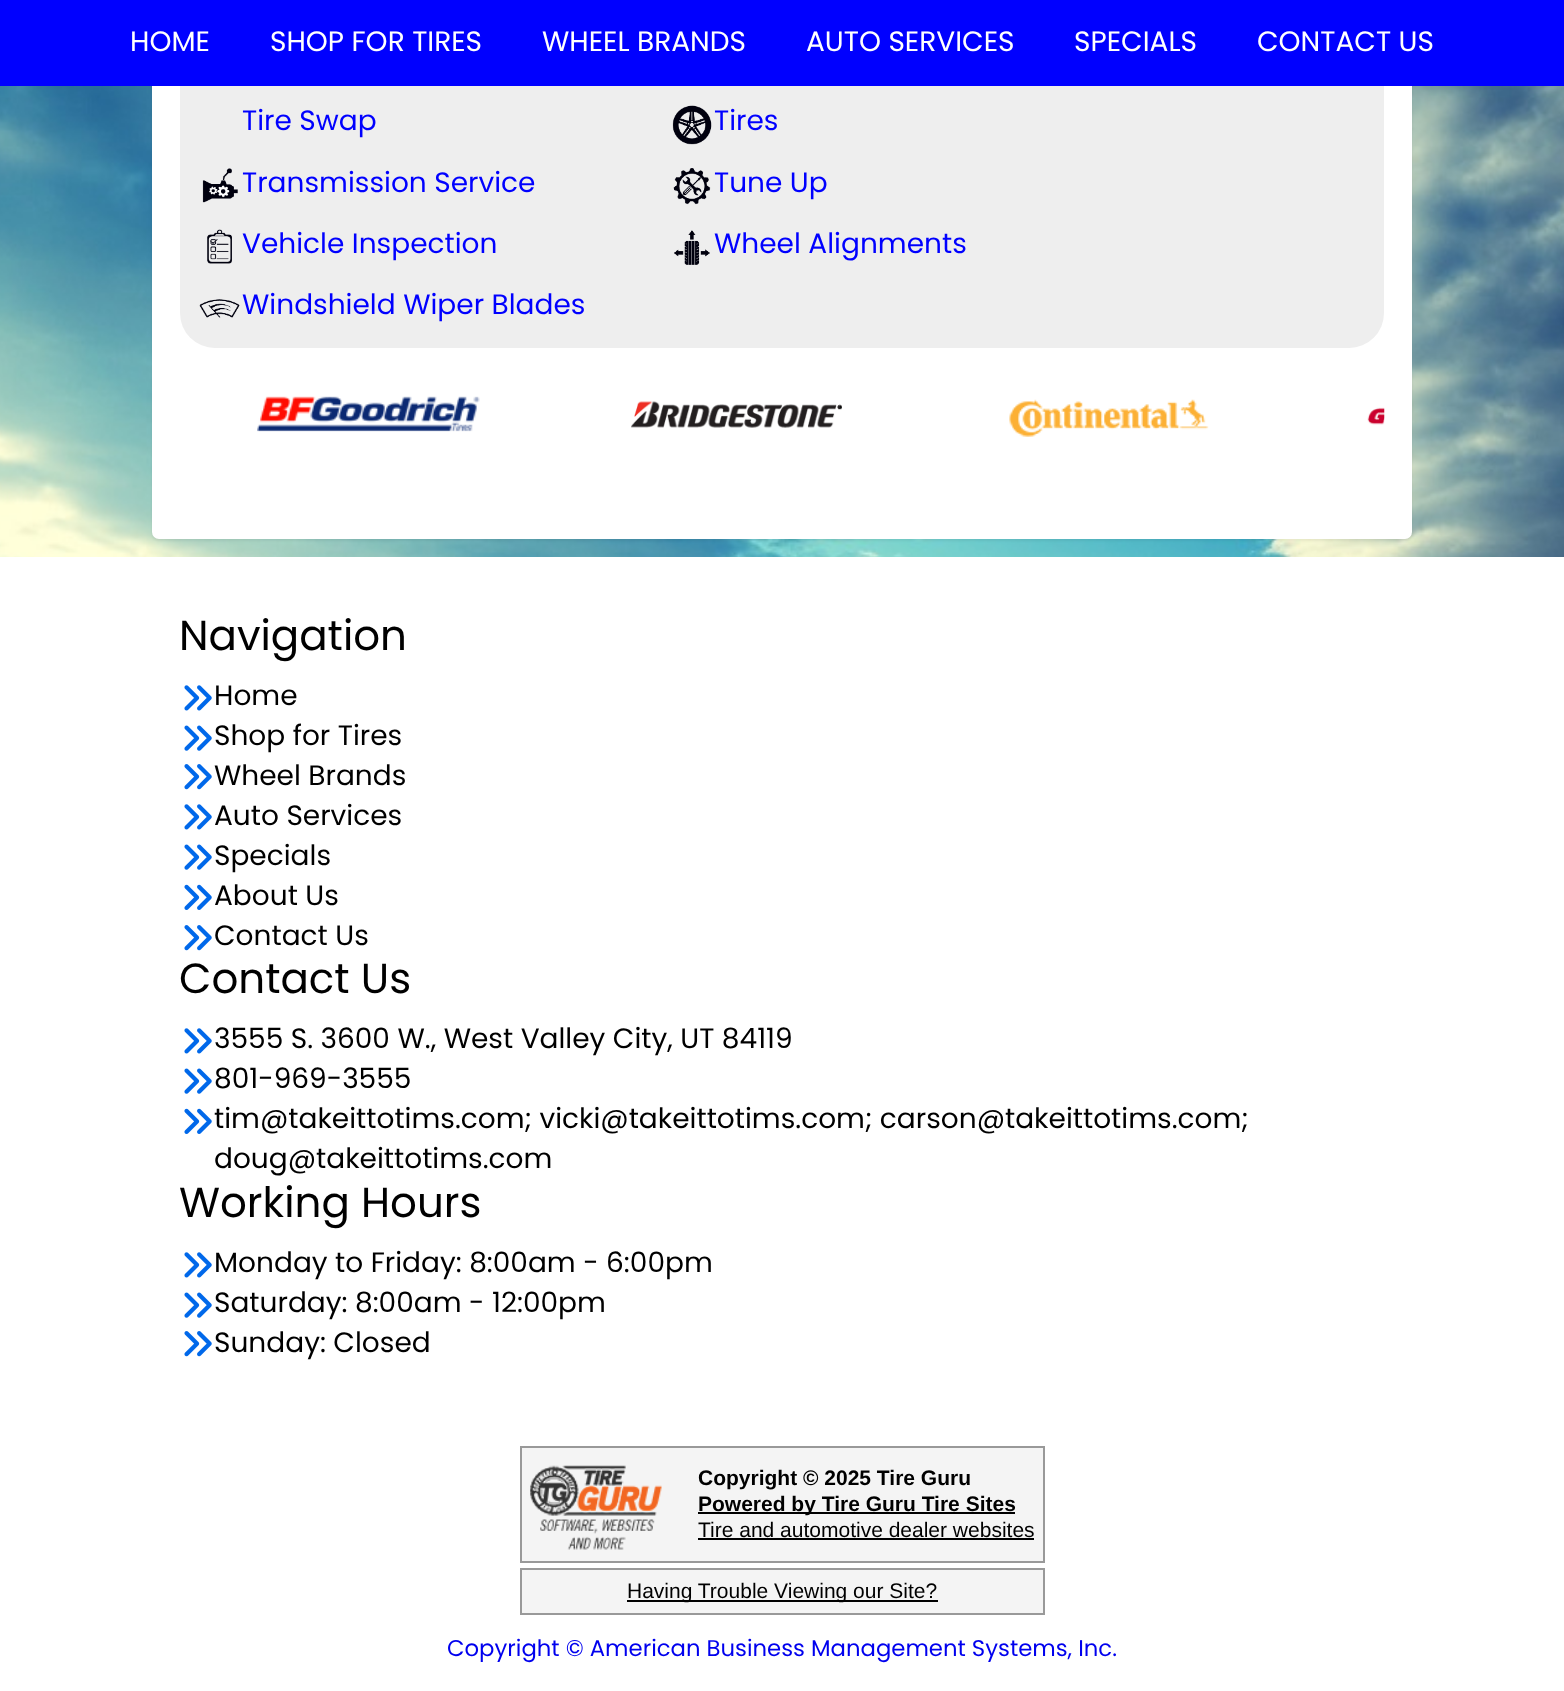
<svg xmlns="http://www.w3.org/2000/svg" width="1564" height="1691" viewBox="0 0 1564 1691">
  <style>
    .t1 { font: 28px Poppins; fill: #fff; }
    .t2 { font: 28px Poppins; fill: #00f; }
    .t3 { font: 42px Poppins; fill: #000; }
    .t4 { font: 28px Poppins; fill: #000; }
    .t5 { font: bold 21px Liberation Sans; fill: #000; }
    .t6 { font: 21px Liberation Sans; fill: #000; }
    .t7 { font: 22.75px Poppins; fill: #00e; }
  </style>
  <rect width="100%" height="100%" fill="#fff"/>
  <image x="0" y="86" width="1564" height="471" href="images/1.png"/>
  <rect x="152" y="-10" width="1260" height="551" rx="7" fill="#0000000d" filter="blur(1px)"/>
  <rect x="152" y="-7" width="1260" height="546" rx="7" fill="#fff"/>
  <rect x="180" y="-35" width="1204" height="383" rx="35" fill="#eee"/>
  <rect x="0" y="0" width="1564" height="86" fill="#00f"/>
  <text x="130" y="51" class="t1">HOME</text>
  <text x="270" y="51" class="t1">SHOP FOR TIRES</text>
  <text x="542" y="51" class="t1">WHEEL BRANDS</text>
  <text x="806" y="51" class="t1">AUTO SERVICES</text>
  <text x="1074" y="51" class="t1">SPECIALS</text>
  <text x="1257" y="51" class="t1">CONTACT US</text>
  <text x="242" y="130" class="t2">Tire Swap</text>
  <image x="672" y="105" width="40" height="40" href="images/2.png"/>
  <text x="714" y="130" class="t2">Tires</text>
  <image x="202" y="168" width="36" height="35" href="images/3.png"/>
  <text x="242" y="192" class="t2">Transmission Service</text>
  <image x="673" y="168" width="38" height="37" href="images/4.png"/>
  <text x="714" y="192" class="t2">Tune Up</text>
  <image x="207" y="229" width="25" height="35" href="images/5.png"/>
  <text x="242" y="253" class="t2">Vehicle Inspection</text>
  <image x="674" y="230" width="36" height="35" href="images/6.png"/>
  <text x="714" y="253" class="t2">Wheel Alignments</text>
  <image x="199" y="299" width="41" height="19" href="images/7.png"/>
  <text x="242" y="314" class="t2">Windshield Wiper Blades</text>
  <image x="257" y="396" width="223" height="36" href="images/8.png"/>
  <image x="631" y="401" width="211" height="27" href="images/9.png"/>
  <image x="1009" y="399" width="200" height="38" href="images/10.png"/>
  <image x="1367" y="407" width="18" height="18" href="images/11.png"/>
  <text x="179" y="650" class="t3">Navigation</text>
  <image x="184" y="685" width="28" height="26" href="images/12.png"/>
  <text x="214" y="705" class="t4">Home</text>
  <image x="184" y="725" width="28" height="26" href="images/13.png"/>
  <text x="214" y="745" class="t4">Shop for Tires</text>
  <image x="184" y="764" width="28" height="26" href="images/14.png"/>
  <text x="214" y="785" class="t4">Wheel Brands</text>
  <image x="184" y="804" width="28" height="26" href="images/12.png"/>
  <text x="214" y="825" class="t4">Auto Services</text>
  <image x="184" y="844" width="28" height="26" href="images/13.png"/>
  <text x="214" y="865" class="t4">Specials</text>
  <image x="184" y="884" width="28" height="26" href="images/15.png"/>
  <text x="214" y="905" class="t4">About Us</text>
  <image x="184" y="925" width="28" height="26" href="images/14.png"/>
  <text x="214" y="945" class="t4">Contact Us</text>
  <text x="179" y="993" class="t3">Contact Us</text>
  <image x="184" y="1028" width="28" height="26" href="images/12.png"/>
  <text x="214" y="1048" class="t4">3555 S. 3600 W., West Valley City, UT 84119</text>
  <image x="184" y="1068" width="28" height="26" href="images/13.png"/>
  <text x="214" y="1088" class="t4">801-969-3555</text>
  <image x="184" y="1108" width="28" height="26" href="images/15.png"/>
  <text x="214" y="1128" class="t4">tim@takeittotims.com; vicki@takeittotims.com; carson@takeittotims.com;</text>
  <text x="214" y="1168" class="t4">doug@takeittotims.com</text>
  <text x="179" y="1217" class="t3">Working Hours</text>
  <image x="184" y="1252" width="28" height="26" href="images/12.png"/>
  <text x="214" y="1272" class="t4">Monday to Friday: 8:00am - 6:00pm</text>
  <image x="184" y="1292" width="28" height="26" href="images/13.png"/>
  <text x="214" y="1312" class="t4">Saturday: 8:00am - 12:00pm</text>
  <image x="184" y="1331" width="28" height="26" href="images/14.png"/>
  <text x="214" y="1352" class="t4">Sunday: Closed</text>
  <rect x="521" y="1447" width="523" height="115" fill="#f4f4f4" stroke="#999" stroke-width="2"/>
  <image x="530" y="1465" width="132" height="85" href="images/16.png"/>
  <text x="698" y="1485" class="t5">Copyright © 2025 Tire Guru</text>
  <rect x="698" y="1512" width="317" height="2" fill="#000"/>
  <text x="698" y="1511" class="t5">Powered by Tire Guru Tire Sites</text>
  <text x="698" y="1537" class="t6">Tire and automotive dealer websites</text>
  <rect x="698" y="1538" width="336" height="2" fill="#000"/>
  <rect x="521" y="1569" width="523" height="45" fill="#f4f4f4" stroke="#999" stroke-width="2"/>
  <rect x="627" y="1600" width="311" height="2" fill="#000"/>
  <text x="627" y="1598" class="t6">Having Trouble Viewing our Site?</text>
  <text x="447" y="1656" class="t7">Copyright © American Business Management Systems, Inc.</text>
</svg>
